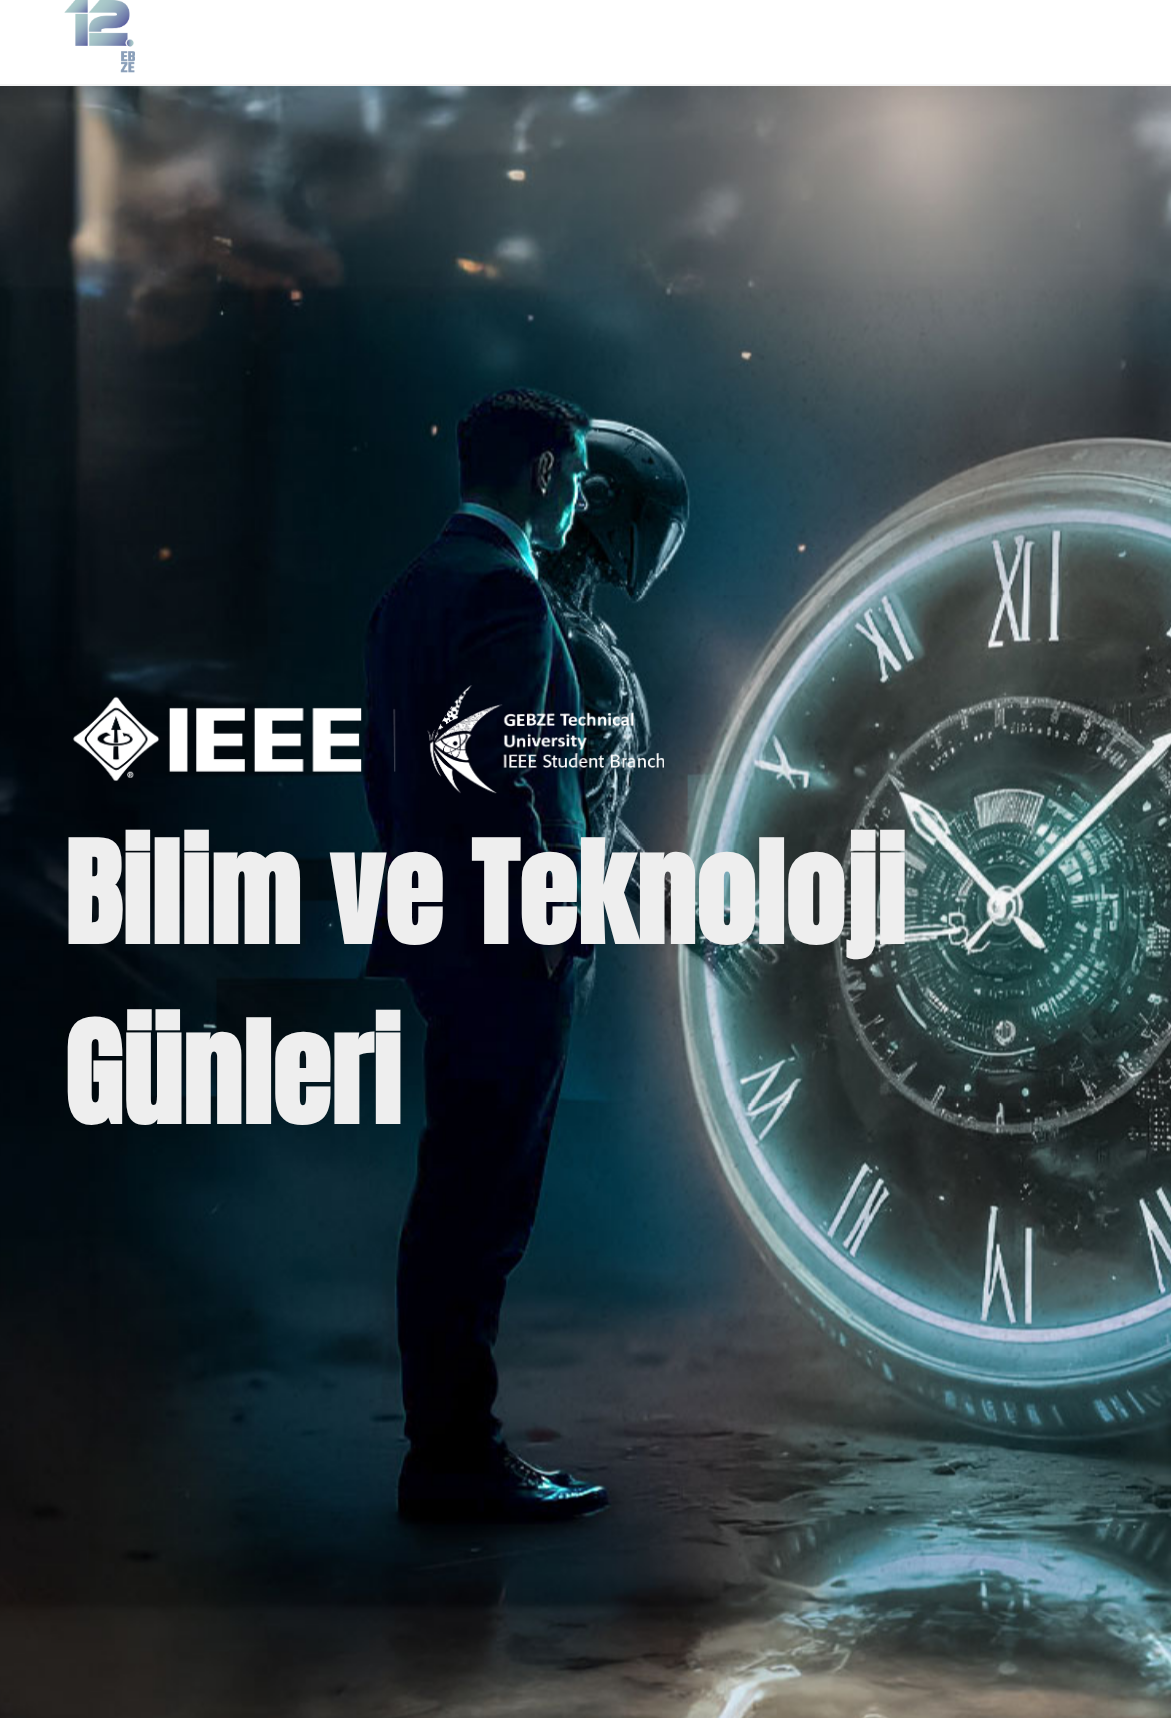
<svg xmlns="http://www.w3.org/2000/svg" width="1171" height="1718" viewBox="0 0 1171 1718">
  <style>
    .t1 { font: bold 120px Anton; fill: #eee; }
  </style>
  <rect width="100%" height="100%" fill="#fff"/>
  <rect x="0" y="84" width="1171" height="2" fill="#f5f5f5"/>
  <image x="64" y="0" width="71" height="73" href="images/1.png"/>
  <image x="0" y="86" width="1171" height="1632" href="images/2.png"/>
  <image x="73" y="685" width="591" height="109" href="images/3.png"/>
  <text x="64" y="944" class="t1">Bilim ve Teknoloji</text>
  <text x="64" y="1124" class="t1">Günleri</text>
</svg>
